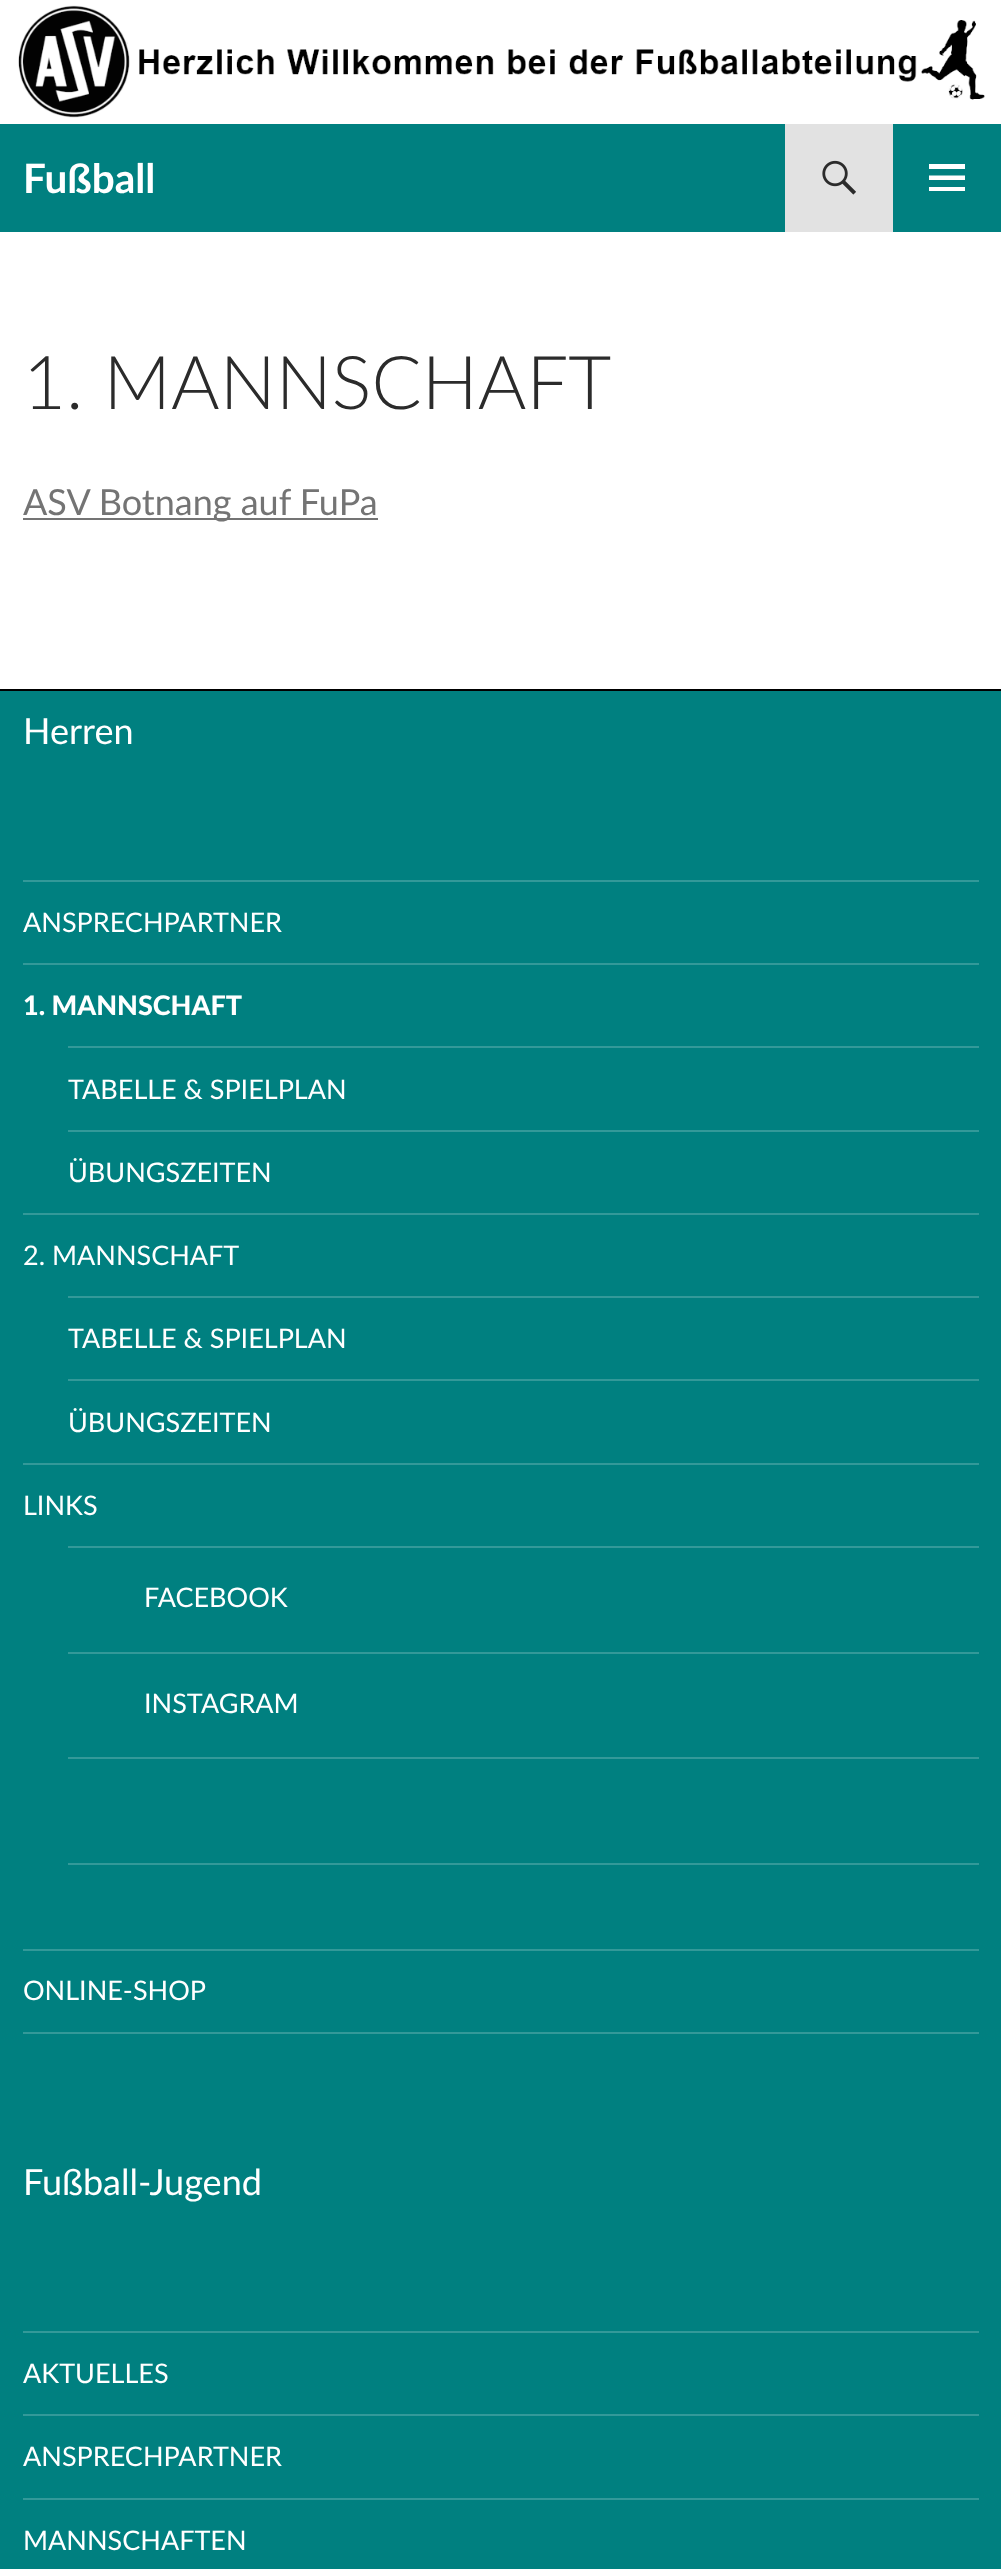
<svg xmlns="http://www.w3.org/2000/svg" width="1001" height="2569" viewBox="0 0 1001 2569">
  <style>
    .t1 { font: bold 40.5px Lato; fill: #fff; }
    .t2 { font: 300 74.25px Lato; fill: #2b2b2b; }
    .t3 { font: 36px Lato; fill: #747474; }
    .t4 { font: 36px Lato; fill: #fff; }
    .t5 { font: 27px Lato; fill: #fff; }
    .t6 { font: 900 27px Lato; fill: #fff; }
  </style>
  <rect width="100%" height="100%" fill="#fff"/>
  <image x="18" y="5" width="967" height="113" href="images/1.png"/>
  <rect x="0" y="124" width="1001" height="108" fill="#008080"/>
  <text x="23" y="193" class="t1">Fußball</text>
  <rect x="785" y="124" width="108" height="108" fill="#e2e2e2"/>
  <image x="822" y="160" width="34" height="35" href="images/2.png"/>
  <path d="M929 191V187H965V191ZM929 164H965V169H929ZM929 180V175.5H965V180Z" fill="#fff"/>
  <text x="23" y="409" class="t2">1. MANNSCHAFT</text>
  <rect x="23" y="518" width="355" height="2" fill="#747474"/>
  <text x="23" y="515" class="t3">ASV Botnang auf FuPa</text>
  <rect x="0" y="691" width="1001" height="1878" fill="#008080"/>
  <rect x="0" y="689" width="1001" height="2" fill="#000"/>
  <text x="23" y="744" class="t4">Herren</text>
  <rect x="23" y="2032" width="956" height="2" fill="#399"/>
  <rect x="23" y="880" width="956" height="2" fill="#399"/>
  <text x="23" y="932" class="t5">ANSPRECHPARTNER</text>
  <rect x="23" y="963" width="956" height="2" fill="#399"/>
  <text x="23" y="1015" class="t6">1. MANNSCHAFT</text>
  <rect x="68" y="1046" width="911" height="2" fill="#399"/>
  <text x="68" y="1099" class="t5">TABELLE &amp; SPIELPLAN</text>
  <rect x="68" y="1130" width="911" height="2" fill="#399"/>
  <text x="68" y="1182" class="t5">ÜBUNGSZEITEN</text>
  <rect x="23" y="1213" width="956" height="2" fill="#399"/>
  <text x="23" y="1265" class="t5">2. MANNSCHAFT</text>
  <rect x="68" y="1296" width="911" height="2" fill="#399"/>
  <text x="68" y="1348" class="t5">TABELLE &amp; SPIELPLAN</text>
  <rect x="68" y="1379" width="911" height="2" fill="#399"/>
  <text x="68" y="1432" class="t5">ÜBUNGSZEITEN</text>
  <rect x="23" y="1463" width="956" height="2" fill="#399"/>
  <text x="23" y="1515" class="t5">LINKS</text>
  <rect x="68" y="1546" width="911" height="2" fill="#399"/>
  <text x="144" y="1607" class="t5">FACEBOOK</text>
  <rect x="68" y="1652" width="911" height="2" fill="#399"/>
  <text x="144" y="1713" class="t5">INSTAGRAM</text>
  <rect x="68" y="1757" width="911" height="2" fill="#399"/>
  <rect x="68" y="1863" width="911" height="2" fill="#399"/>
  <rect x="23" y="1949" width="956" height="2" fill="#399"/>
  <text x="23" y="2000" class="t5">ONLINE-SHOP</text>
  <text x="23" y="2195" class="t4">Fußball-Jugend</text>
  <rect x="23" y="2331" width="956" height="2" fill="#399"/>
  <text x="23" y="2383" class="t5">AKTUELLES</text>
  <rect x="23" y="2414" width="956" height="2" fill="#399"/>
  <text x="23" y="2466" class="t5">ANSPRECHPARTNER</text>
  <rect x="23" y="2498" width="956" height="2" fill="#399"/>
  <text x="23" y="2550" class="t5">MANNSCHAFTEN</text>
</svg>
